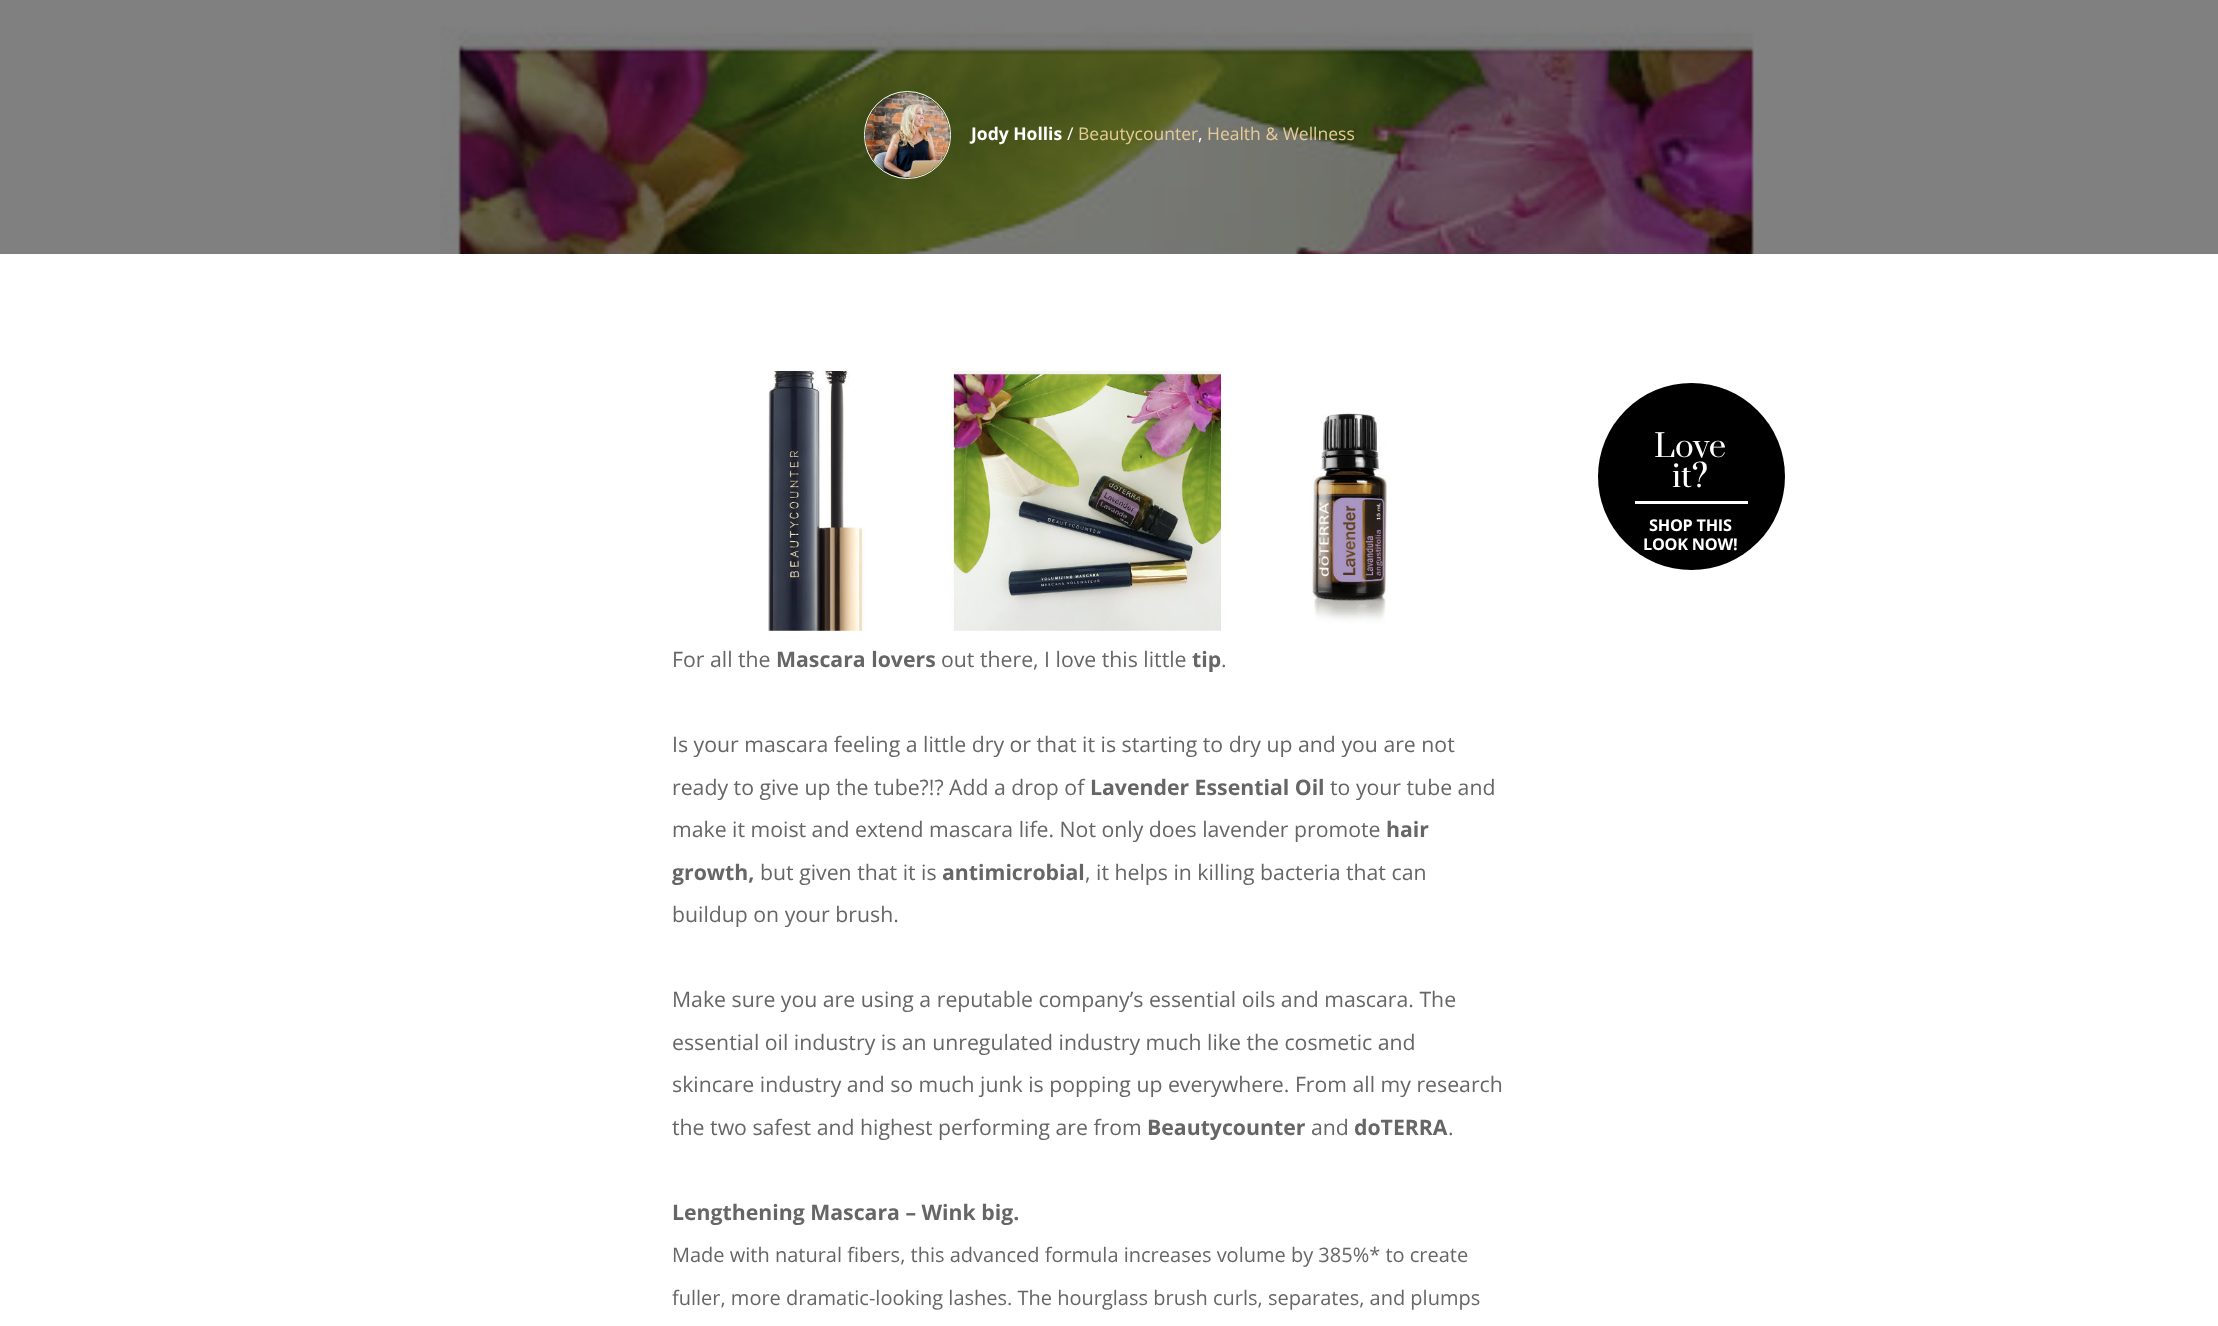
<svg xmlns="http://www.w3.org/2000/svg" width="2218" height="1326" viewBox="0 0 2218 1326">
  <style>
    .t1 { font: bold 17.5px Open Sans; fill: #fff; }
    .t2 { font: 17.5px Open Sans; fill: #fff; }
    .t3 { font: 17.5px Open Sans; fill: #e5cc96; }
    .t4 { font: 31px Prata; fill: #fff; }
    .t5 { font: bold 16.25px Open Sans; letter-spacing: -0.25px; fill: #fff; }
    .t6 { font: 21.25px Open Sans; fill: #666; }
    .t7 { font: bold 21.25px Open Sans; fill: #666; }
    .t8 { font: 20px Open Sans; fill: #666; }
  </style>
  <rect width="100%" height="100%" fill="#fff"/>
  <rect x="0" y="0" width="2218" height="254" fill="#808080"/>
  <image x="440" y="26" width="1314" height="228" href="images/1.png"/>
  <rect x="864.5" y="91.5" width="86" height="87" rx="43" fill="none" stroke="#fff"/>
  <image x="865" y="92" width="85" height="86" href="images/2.png"/>
  <text x="971" y="140" class="t1">Jody Hollis</text>
  <text x="1067" y="140" class="t2">/</text>
  <text x="1078" y="140" class="t3">Beautycounter</text>
  <text x="1198" y="140" class="t2">,</text>
  <text x="1207" y="140" class="t3">Health &amp; Wellness</text>
  <circle cx="1691.5" cy="476.5" r="93.5" fill="#000"/>
  <rect x="1635" y="501" width="113" height="3" fill="#fff"/>
  <text x="1654" y="457" class="t4">Love</text>
  <text x="1672" y="487" class="t4">it?</text>
  <text x="1649" y="531" class="t5">SHOP THIS</text>
  <text x="1643" y="550" class="t5">LOOK NOW!</text>
  <image x="768" y="369" width="619" height="262" href="images/3.png"/>
  <text x="672" y="667" class="t6">For all the</text>
  <text x="776" y="667" class="t7">Mascara lovers</text>
  <text x="941" y="667" class="t6">out there, I love this little</text>
  <text x="1192" y="667" class="t7">tip</text>
  <text x="1221" y="667" class="t6">.</text>
  <text x="672" y="752" class="t6">Is your mascara feeling a little dry or that it is starting to dry up and you are not</text>
  <text x="672" y="795" class="t6">ready to give up the tube?!? Add a drop of</text>
  <text x="1090" y="795" class="t7">Lavender Essential Oil</text>
  <text x="1330" y="795" class="t6">to your tube and</text>
  <text x="672" y="837" class="t6">make it moist and extend mascara life. Not only does lavender promote</text>
  <text x="1386" y="837" class="t7">hair</text>
  <text x="672" y="880" class="t7">growth,</text>
  <text x="760" y="880" class="t6">but given that it is</text>
  <text x="942" y="880" class="t7">antimicrobial</text>
  <text x="1085" y="880" class="t6">, it helps in killing bacteria that can</text>
  <text x="672" y="922" class="t6">buildup on your brush.</text>
  <text x="672" y="1007" class="t6">Make sure you are using a reputable company’s essential oils and mascara. The</text>
  <text x="672" y="1050" class="t6">essential oil industry is an unregulated industry much like the cosmetic and</text>
  <text x="672" y="1092" class="t6">skincare industry and so much junk is popping up everywhere. From all my research</text>
  <text x="672" y="1135" class="t6">the two safest and highest performing are from</text>
  <text x="1147" y="1135" class="t7">Beautycounter</text>
  <text x="1311" y="1135" class="t6">and</text>
  <text x="1354" y="1135" class="t7">doTERRA</text>
  <text x="1448" y="1135" class="t6">.</text>
  <text x="672" y="1220" class="t7">Lengthening Mascara – Wink big.</text>
  <text x="672" y="1262" class="t8">Made with natural fibers, this advanced formula increases volume by 385%* to create</text>
  <text x="672" y="1305" class="t8">fuller, more dramatic-looking lashes. The hourglass brush curls, separates, and plumps</text>
</svg>
